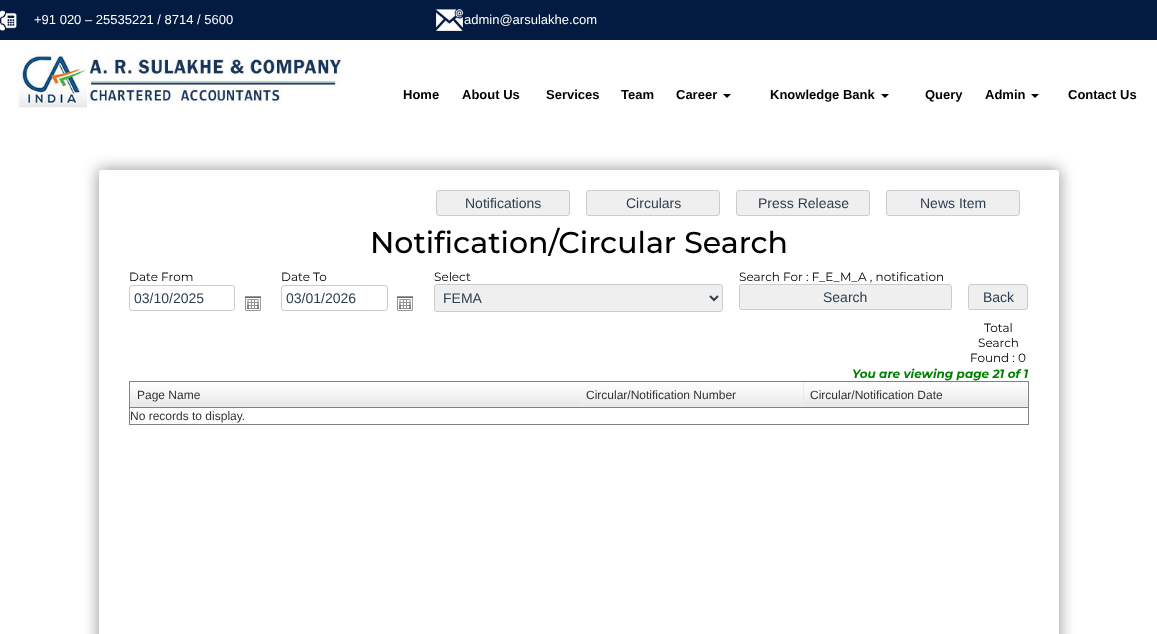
<svg xmlns="http://www.w3.org/2000/svg" width="1157" height="634" viewBox="0 0 1157 634">
  <style>
    .t1 { font: 13px Liberation Sans; fill: #fff; }
    .t2 { font: bold 13px Liberation Sans; fill: #000; }
    .t3 { font: 14px Liberation Sans; fill: #2c3e50; }
    .t4 { font: 500 30px Montserrat; fill: #000; }
    .t5 { font: 12px Montserrat; fill: #000; }
    .t6 { font: italic bold 12px Montserrat; fill: #008000; }
    .t7 { font: 12px Liberation Sans; fill: #333; }
  </style>
  <rect width="100%" height="100%" fill="#fff"/>
  <rect x="0" y="0" width="1157" height="40" fill="#031a41"/>
  <image x="0" y="10" width="17" height="21" href="images/1.png"/>
  <text x="34" y="24" class="t1">+91 020 – 25535221 / 8714 / 5600</text>
  <image x="436" y="9" width="27" height="22" href="images/2.png"/>
  <text x="464" y="24" class="t1">admin@arsulakhe.com</text>
  <image x="18" y="51" width="323" height="58" href="images/3.png"/>
  <text x="403" y="99" class="t2">Home</text>
  <text x="462" y="99" class="t2">About Us</text>
  <text x="546" y="99" class="t2">Services</text>
  <text x="621" y="99" class="t2">Team</text>
  <text x="676" y="99" class="t2">Career</text>
  <path d="M723 94H731L727 98Z" fill="#000"/>
  <text x="770" y="99" class="t2">Knowledge Bank</text>
  <path d="M881 94H889L885 98Z" fill="#000"/>
  <text x="925" y="99" class="t2">Query</text>
  <text x="985" y="99" class="t2">Admin</text>
  <path d="M1031 94H1039L1035 98Z" fill="#000"/>
  <text x="1068" y="99" class="t2">Contact Us</text>
  <rect x="98" y="169" width="962" height="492" rx="4" fill="#00000066" filter="blur(7.5px)"/>
  <rect x="99" y="170" width="960" height="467" rx="3" fill="#fff"/>
  <rect x="436.5" y="190.5" width="133" height="25" rx="2.5" fill="#efefef" stroke="#ccc"/>
  <text x="465" y="208" class="t3">Notifications</text>
  <rect x="586.5" y="190.5" width="133" height="25" rx="2.5" fill="#efefef" stroke="#ccc"/>
  <text x="626" y="208" class="t3">Circulars</text>
  <rect x="736.5" y="190.5" width="133" height="25" rx="2.5" fill="#efefef" stroke="#ccc"/>
  <text x="758" y="208" class="t3">Press Release</text>
  <rect x="886.5" y="190.5" width="133" height="25" rx="2.5" fill="#efefef" stroke="#ccc"/>
  <text x="920" y="208" class="t3">News Item</text>
  <text x="370" y="253" class="t4">Notification/Circular Search</text>
  <text x="129" y="281" class="t5">Date From</text>
  <rect x="129.5" y="285.5" width="105" height="25" rx="2.5" fill="none" stroke="#ccc"/>
  <text x="134" y="303" class="t3">03/10/2025</text>
  <image x="245" y="296" width="16" height="15" href="images/4.png"/>
  <text x="281" y="281" class="t5">Date To</text>
  <rect x="281.5" y="285.5" width="106" height="25" rx="2.5" fill="none" stroke="#ccc"/>
  <text x="286" y="303" class="t3">03/01/2026</text>
  <image x="397" y="296" width="16" height="15" href="images/4.png"/>
  <text x="434" y="281" class="t5">Select</text>
  <rect x="434.5" y="284.5" width="288" height="27" rx="2.5" fill="#efefef" stroke="#ccc"/>
  <path d="M710 296L714 300L718 296" fill="none" stroke="#2c3e50" stroke-width="2"/>
  <text x="443" y="303" class="t3">FEMA</text>
  <text x="739" y="281" class="t5">Search For : F_E_M_A , notification</text>
  <rect x="739.5" y="284.5" width="212" height="25" rx="2.5" fill="#efefef" stroke="#ccc"/>
  <text x="823" y="302" class="t3">Search</text>
  <rect x="968.5" y="284.5" width="59" height="25" rx="2.5" fill="#efefef" stroke="#ccc"/>
  <text x="983" y="302" class="t3">Back</text>
  <text x="984" y="332" class="t5">Total</text>
  <text x="978" y="347" class="t5">Search</text>
  <text x="970" y="362" class="t5">Found : 0</text>
  <text x="852" y="378" class="t6">You are viewing page 21 of 1</text>
  <rect x="129.5" y="381.5" width="899" height="43" fill="none" stroke="#828282"/>
  <rect x="130" y="401" width="449" height="6" fill="#eaeaea"/>
  <image x="130" y="382" width="449" height="19" href="images/5.png"/>
  <rect x="130" y="407" width="898" height="1" fill="#828282"/>
  <text x="137" y="399" class="t7">Page Name</text>
  <image x="579" y="382" width="224" height="25" href="images/6.png"/>
  <text x="586" y="399" class="t7">Circular/Notification Number</text>
  <rect x="803" y="382" width="225" height="25" fill="#eaeaea"/>
  <image x="804" y="382" width="224" height="19" href="images/7.png"/>
  <text x="810" y="399" class="t7">Circular/Notification Date</text>
  <text x="130" y="420" class="t7">No records to display.</text>
</svg>
